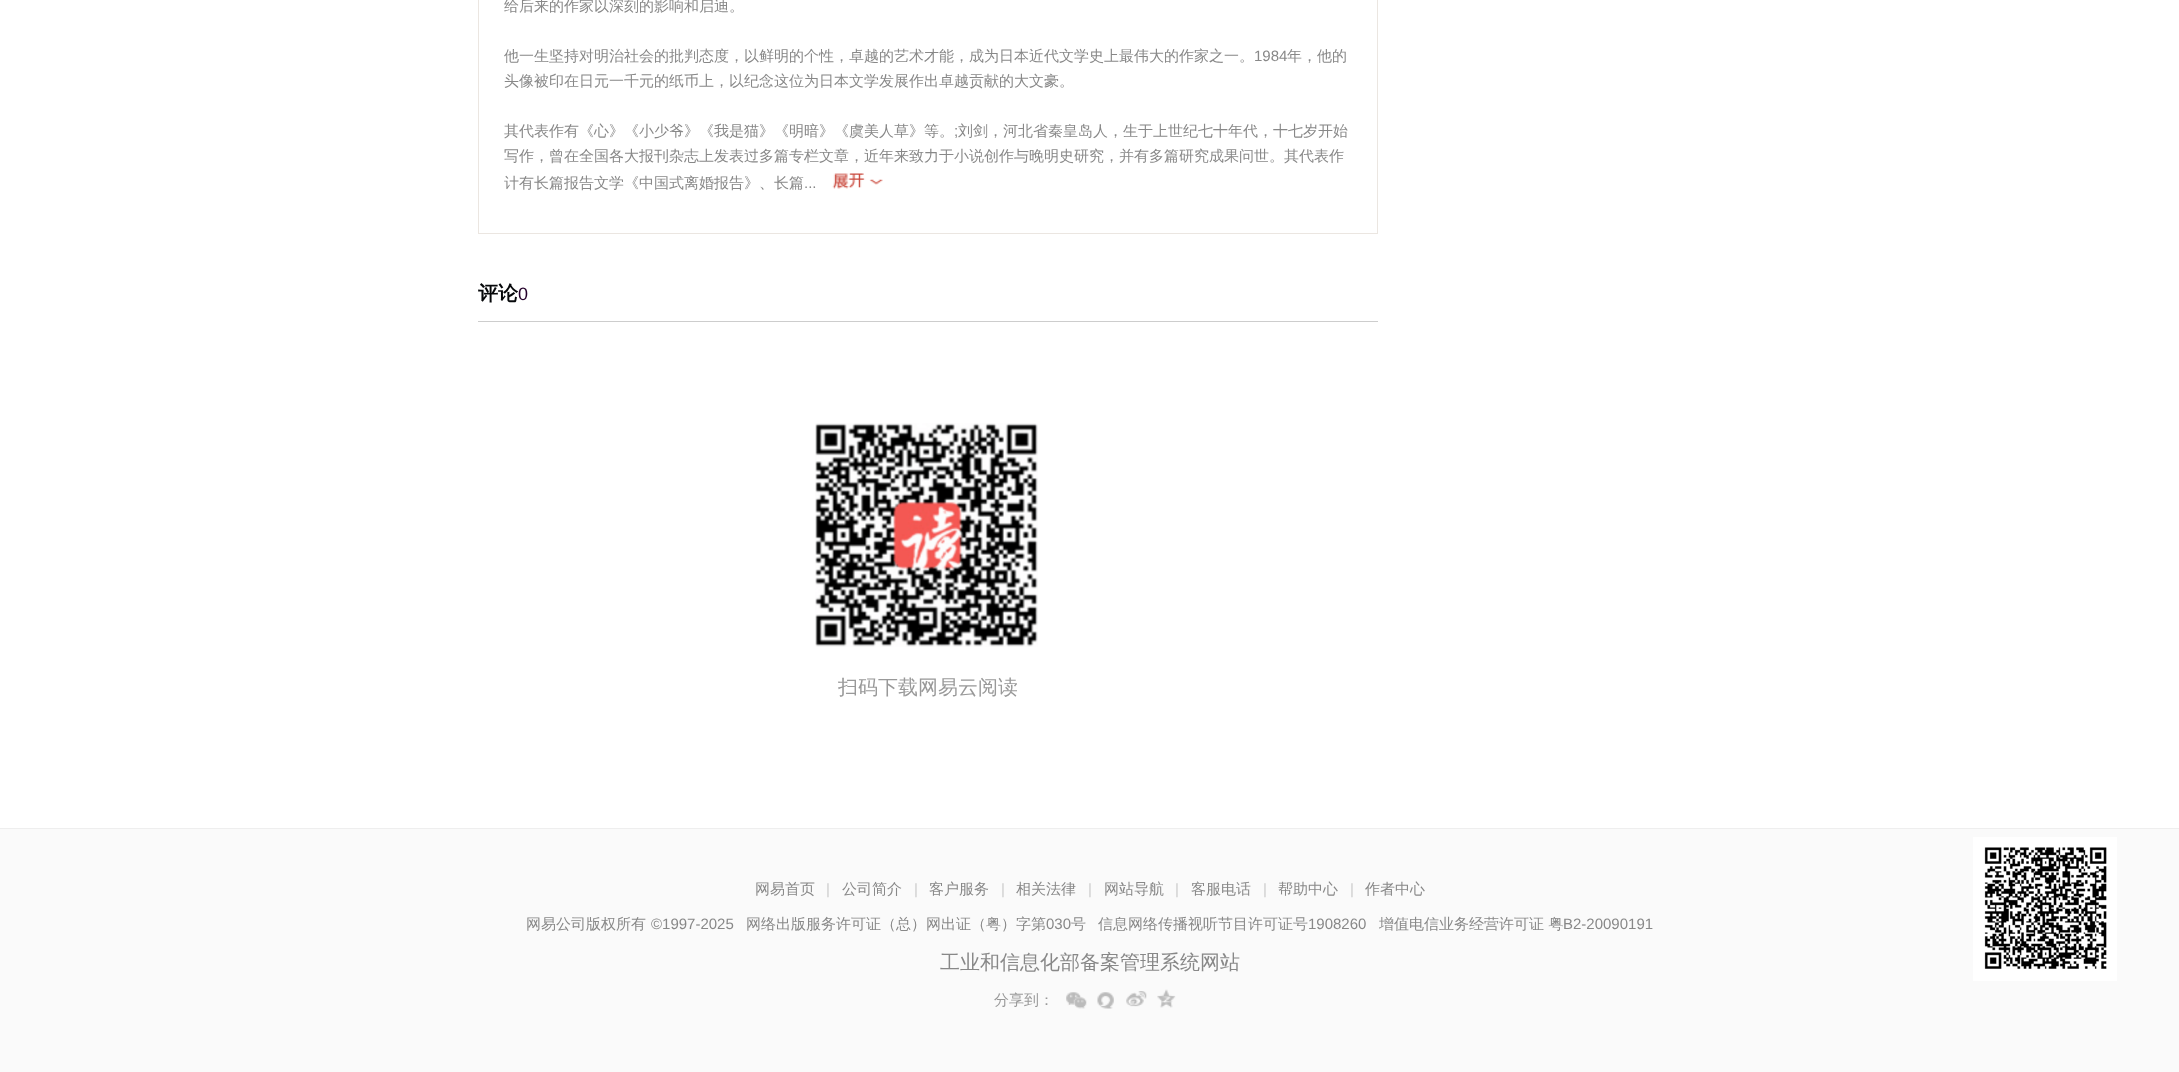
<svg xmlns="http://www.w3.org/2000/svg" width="2179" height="1072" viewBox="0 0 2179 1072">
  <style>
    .t1 { font: 500 15px WenQuanYi Zen Hei; fill: #888; }
    .t2 { font: 15px Liberation Sans; fill: #888; }
    .t3 { font: bold 20px WenQuanYi Zen Hei; fill: #06080a; }
    .t4 { font: 18px Liberation Sans; fill: #24002a; }
    .t5 { font: 500 20px WenQuanYi Zen Hei; fill: #999; }
    .t6 { font: 15px Liberation Sans; fill: #ccc; }
    .t7 { font: 500 20px WenQuanYi Zen Hei; fill: #888; }
    .t8 { font: 500 15px WenQuanYi Zen Hei; fill: #999; }
  </style>
  <rect width="100%" height="100%" fill="#fff"/>
  <rect x="478.5" y="-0.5" width="899" height="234" fill="none" stroke="#ebe6e1"/>
  <text x="504" y="11" class="t1">给后来的作家以深刻的影响和启迪。</text>
  <text x="504" y="61" class="t1">他一生坚持对明治社会的批判态度，以鲜明的个性，卓越的艺术才能，成为日本近代文学史上最伟大的作家之一。</text>
  <text x="1254" y="61" class="t2">1984</text>
  <text x="1287" y="61" class="t1">年，他的</text>
  <text x="504" y="86" class="t1">头像被印在日元一千元的纸币上，以纪念这位为日本文学发展作出卓越贡献的大文豪。</text>
  <text x="504" y="136" class="t1">其代表作有《心》《小少爷》《我是猫》《明暗》《虞美人草》等。</text>
  <text x="954" y="136" class="t2">;</text>
  <text x="958" y="136" class="t1">刘剑，河北省秦皇岛人，生于上世纪七十年代，十七岁开始</text>
  <text x="504" y="161" class="t1">写作，曾在全国各大报刊杂志上发表过多篇专栏文章，近年来致力于小说创作与晚明史研究，并有多篇研究成果问世。其代表作</text>
  <text x="504" y="188" class="t1">计有长篇报告文学《中国式离婚报告》、长篇</text>
  <text x="804" y="188" class="t2">...</text>
  <image x="832" y="173" width="51" height="16" href="images/1.png"/>
  <rect x="478" y="321" width="900" height="1" fill="#cdcdcd"/>
  <text x="478" y="300" class="t3">评论</text>
  <text x="518" y="300" class="t4">0</text>
  <image x="815" y="423" width="223" height="224" href="images/2.png"/>
  <text x="838" y="694" class="t5">扫码下载网易云阅读</text>
  <rect x="0" y="829" width="2179" height="243" fill="#fafafa"/>
  <rect x="0" y="828" width="2179" height="1" fill="#eee"/>
  <text x="755" y="894" class="t1">网易首页</text>
  <text x="826" y="894" class="t6">|</text>
  <text x="842" y="894" class="t1">公司简介</text>
  <text x="914" y="894" class="t6">|</text>
  <text x="929" y="894" class="t1">客户服务</text>
  <text x="1001" y="894" class="t6">|</text>
  <text x="1016" y="894" class="t1">相关法律</text>
  <text x="1088" y="894" class="t6">|</text>
  <text x="1104" y="894" class="t1">网站导航</text>
  <text x="1175" y="894" class="t6">|</text>
  <text x="1191" y="894" class="t1">客服电话</text>
  <text x="1263" y="894" class="t6">|</text>
  <text x="1278" y="894" class="t1">帮助中心</text>
  <text x="1350" y="894" class="t6">|</text>
  <text x="1365" y="894" class="t1">作者中心</text>
  <text x="526" y="929" class="t1">网易公司版权所有</text>
  <text x="651" y="929" class="t2">©1997-2025</text>
  <text x="746" y="929" class="t1">网络出版服务许可证（总）网出证（粤）字第</text>
  <text x="1046" y="929" class="t2">030</text>
  <text x="1071" y="929" class="t1">号</text>
  <text x="1098" y="929" class="t1">信息网络传播视听节目许可证号</text>
  <text x="1308" y="929" class="t2">1908260</text>
  <text x="1379" y="929" class="t1">增值电信业务经营许可证 粤</text>
  <text x="1563" y="929" class="t2">B2-20090191</text>
  <text x="940" y="969" class="t7">工业和信息化部备案管理系统网站</text>
  <text x="994" y="1005" class="t8">分享到：</text>
  <image x="1066" y="992" width="21" height="17" href="images/3.png"/>
  <image x="1097" y="992" width="17" height="17" href="images/4.png"/>
  <image x="1126" y="991" width="21" height="16" href="images/5.png"/>
  <image x="1157" y="989" width="19" height="19" href="images/6.png"/>
  <image x="1973" y="837" width="144" height="144" href="images/7.png"/>
</svg>
